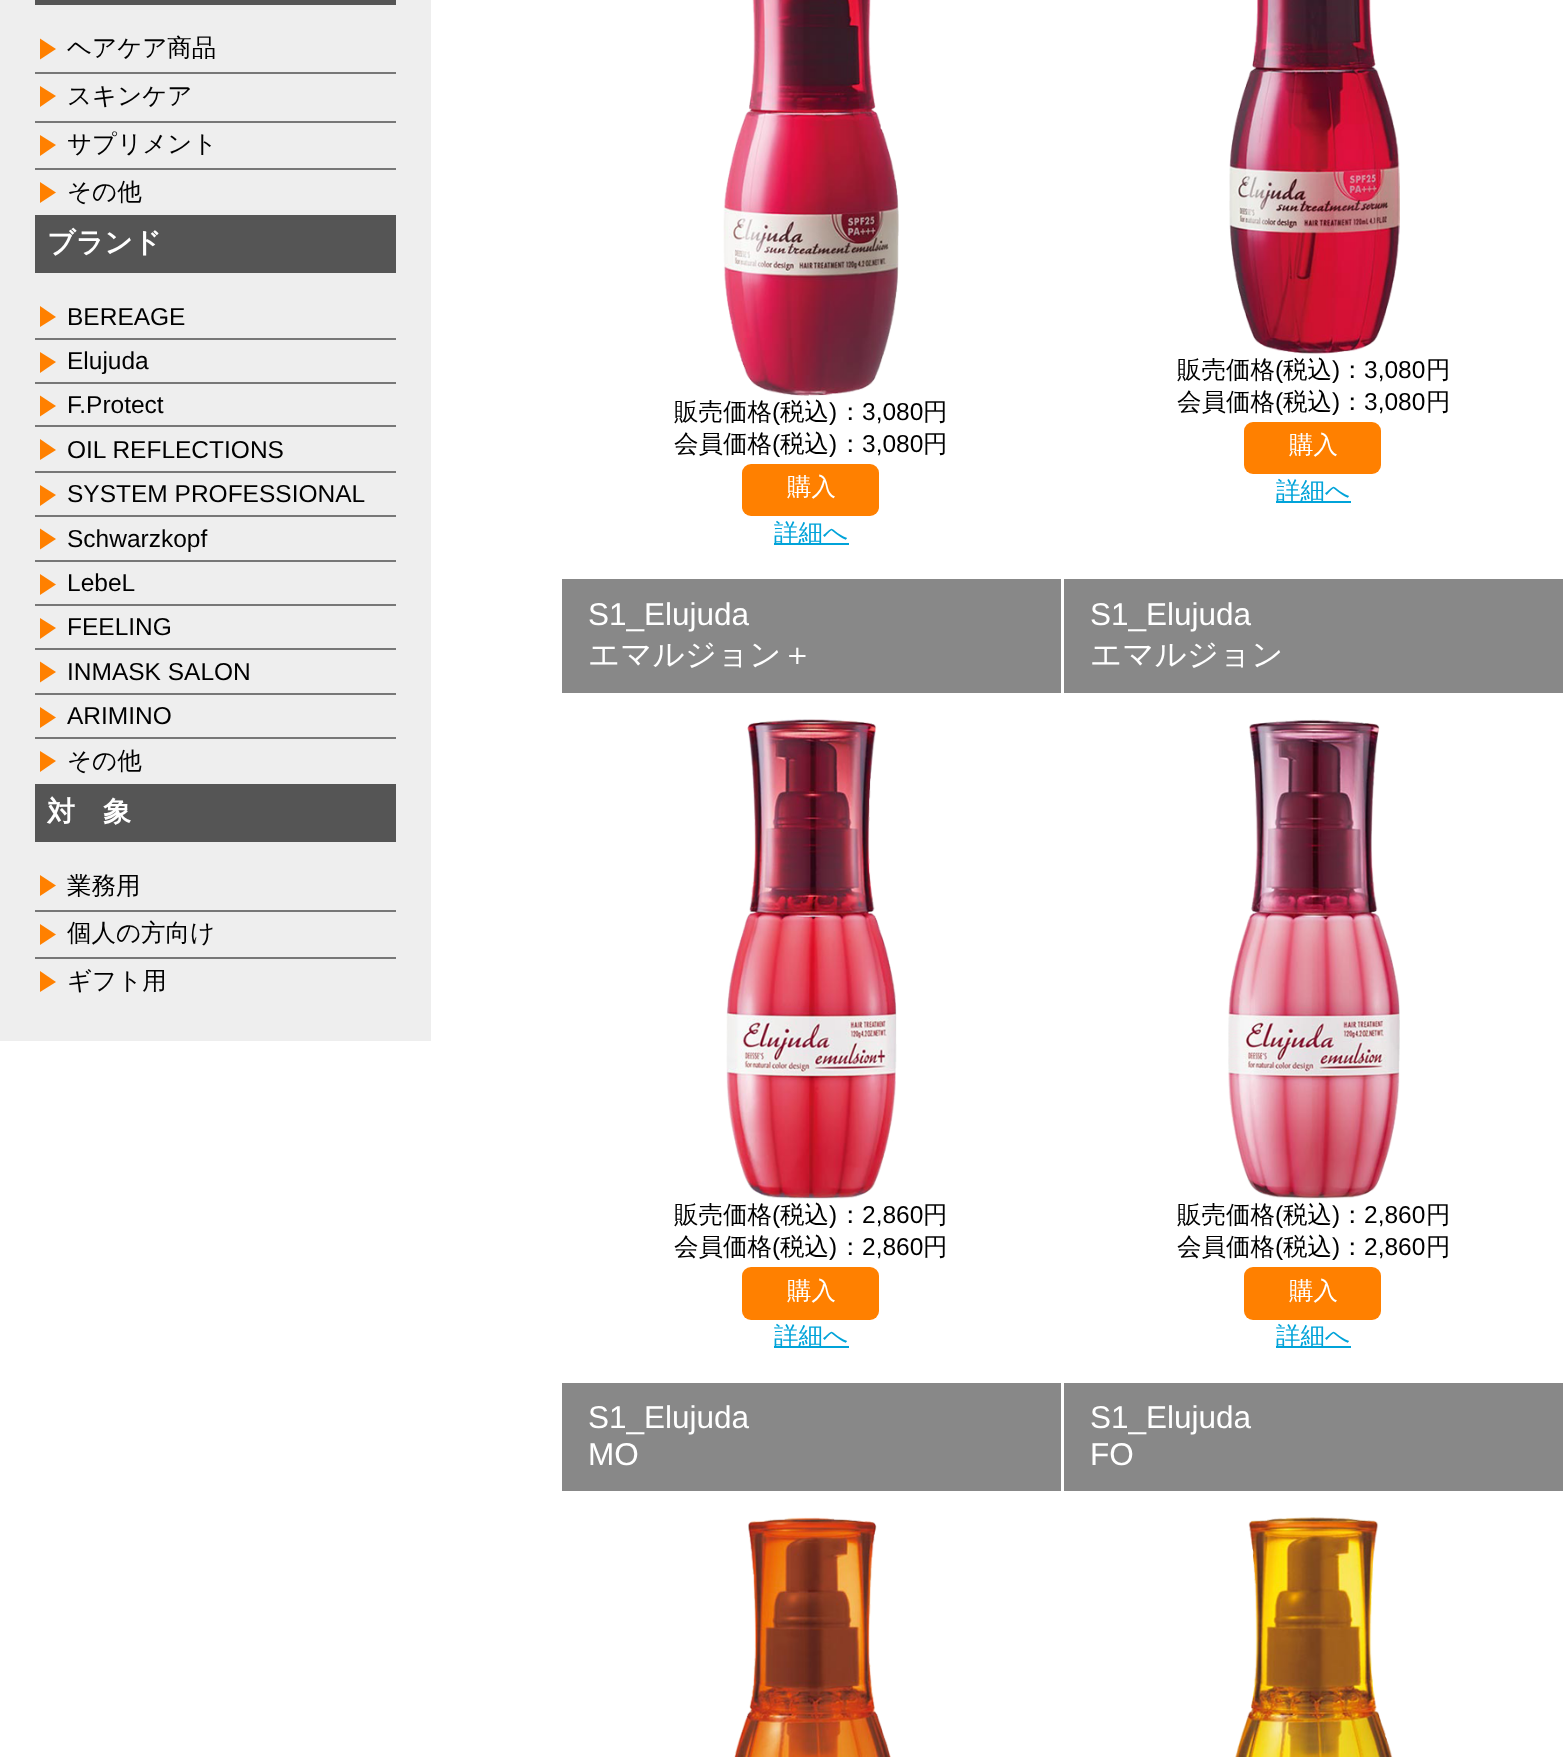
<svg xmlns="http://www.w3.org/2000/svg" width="1563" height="1757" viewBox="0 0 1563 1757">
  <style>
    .t1 { font: 500 24.5px WenQuanYi Zen Hei; fill: #000; }
    .t2 { font: bold 28px WenQuanYi Zen Hei; fill: #fff; }
    .t3 { font: 24.5px Liberation Sans; fill: #000; }
    .t4 { font: 500 24.5px WenQuanYi Zen Hei; fill: #fff; }
    .t5 { font: 500 24.5px WenQuanYi Zen Hei; fill: #00a3d9; }
    .t6 { font: 31.5px Liberation Sans; fill: #fff; }
    .t7 { font: 500 31.5px WenQuanYi Zen Hei; fill: #fff; }
  </style>
  <rect width="100%" height="100%" fill="#fff"/>
  <rect x="0" y="0" width="431" height="1041" fill="#eee"/>
  <rect x="35" y="0" width="361" height="5" fill="#555"/>
  <path d="M40 59.5V38.5L56 49Z" fill="#ff8000"/>
  <text x="67" y="56" class="t1">ヘアケア商品</text>
  <rect x="35" y="72" width="361" height="2" fill="#777"/>
  <path d="M40 107V86L56 96Z" fill="#ff8000"/>
  <text x="67" y="104" class="t1">スキンケア</text>
  <rect x="35" y="121" width="361" height="2" fill="#777"/>
  <path d="M40 156V135L56 145Z" fill="#ff8000"/>
  <text x="67" y="152" class="t1">サプリメント</text>
  <rect x="35" y="168" width="361" height="2" fill="#777"/>
  <path d="M40 203V182L56 192.5Z" fill="#ff8000"/>
  <text x="67" y="200" class="t1">その他</text>
  <rect x="35" y="215" width="361" height="58" fill="#555"/>
  <text x="47" y="252" class="t2">ブランド</text>
  <path d="M40 327V306L56 317Z" fill="#ff8000"/>
  <text x="67" y="325" class="t3">BEREAGE</text>
  <rect x="35" y="338" width="361" height="2" fill="#777"/>
  <path d="M40 373V352L56 362Z" fill="#ff8000"/>
  <text x="67" y="369" class="t3">Elujuda</text>
  <rect x="35" y="382" width="361" height="2" fill="#777"/>
  <path d="M40 416.5V395.5L56 406Z" fill="#ff8000"/>
  <text x="67" y="413" class="t3">F.Protect</text>
  <rect x="35" y="425" width="361" height="2" fill="#777"/>
  <path d="M40 460V439L56 450Z" fill="#ff8000"/>
  <text x="67" y="458" class="t3">OIL REFLECTIONS</text>
  <rect x="35" y="471" width="361" height="2" fill="#777"/>
  <path d="M40 506V485L56 495Z" fill="#ff8000"/>
  <text x="67" y="502" class="t3">SYSTEM PROFESSIONAL</text>
  <rect x="35" y="515" width="361" height="2" fill="#777"/>
  <path d="M40 549.5V528.5L56 539Z" fill="#ff8000"/>
  <text x="67" y="547" class="t3">Schwarzkopf</text>
  <rect x="35" y="560" width="361" height="2" fill="#777"/>
  <path d="M40 595V574L56 584.5Z" fill="#ff8000"/>
  <text x="67" y="591" class="t3">LebeL</text>
  <rect x="35" y="604" width="361" height="2" fill="#777"/>
  <path d="M40 639V618L56 628Z" fill="#ff8000"/>
  <text x="67" y="635" class="t3">FEELING</text>
  <rect x="35" y="648" width="361" height="2" fill="#777"/>
  <path d="M40 682.5V661.5L56 672Z" fill="#ff8000"/>
  <text x="67" y="680" class="t3">INMASK SALON</text>
  <rect x="35" y="693" width="361" height="2" fill="#777"/>
  <path d="M40 728V707L56 717.5Z" fill="#ff8000"/>
  <text x="67" y="724" class="t3">ARIMINO</text>
  <rect x="35" y="737" width="361" height="2" fill="#777"/>
  <path d="M40 772V751L56 761Z" fill="#ff8000"/>
  <text x="67" y="769" class="t1">その他</text>
  <rect x="35" y="784" width="361" height="58" fill="#555"/>
  <text x="47" y="821" class="t2">対　象</text>
  <path d="M40 896V875L56 885.5Z" fill="#ff8000"/>
  <text x="67" y="894" class="t1">業務用</text>
  <rect x="35" y="910" width="361" height="2" fill="#777"/>
  <path d="M40 945V924L56 934.5Z" fill="#ff8000"/>
  <text x="67" y="941" class="t1">個人の方向け</text>
  <rect x="35" y="957" width="361" height="2" fill="#777"/>
  <path d="M40 992V971L56 982Z" fill="#ff8000"/>
  <text x="67" y="989" class="t1">ギフト用</text>
  <image x="723" y="0" width="176" height="396" href="images/1.png"/>
  <text x="674" y="420" class="t1">販売価格</text>
  <text x="772" y="420" class="t3">(</text>
  <text x="780" y="420" class="t1">税込</text>
  <text x="829" y="420" class="t3">)</text>
  <text x="838" y="420" class="t1">：</text>
  <text x="862" y="420" class="t3">3,080</text>
  <text x="923" y="420" class="t1">円</text>
  <text x="674" y="452" class="t1">会員価格</text>
  <text x="772" y="452" class="t3">(</text>
  <text x="780" y="452" class="t1">税込</text>
  <text x="829" y="452" class="t3">)</text>
  <text x="838" y="452" class="t1">：</text>
  <text x="862" y="452" class="t3">3,080</text>
  <text x="923" y="452" class="t1">円</text>
  <rect x="742" y="464" width="137" height="52" rx="9" fill="#ff8000"/>
  <text x="787" y="495" class="t4">購入</text>
  <rect x="774" y="543" width="75" height="2" fill="#00a3d9"/>
  <text x="774" y="541" class="t5">詳細へ</text>
  <image x="1229" y="0" width="171" height="354" href="images/2.png"/>
  <text x="1177" y="378" class="t1">販売価格</text>
  <text x="1275" y="378" class="t3">(</text>
  <text x="1283" y="378" class="t1">税込</text>
  <text x="1332" y="378" class="t3">)</text>
  <text x="1340" y="378" class="t1">：</text>
  <text x="1364" y="378" class="t3">3,080</text>
  <text x="1426" y="378" class="t1">円</text>
  <text x="1177" y="410" class="t1">会員価格</text>
  <text x="1275" y="410" class="t3">(</text>
  <text x="1283" y="410" class="t1">税込</text>
  <text x="1332" y="410" class="t3">)</text>
  <text x="1340" y="410" class="t1">：</text>
  <text x="1364" y="410" class="t3">3,080</text>
  <text x="1426" y="410" class="t1">円</text>
  <rect x="1244" y="422" width="137" height="52" rx="9" fill="#ff8000"/>
  <text x="1289" y="453" class="t4">購入</text>
  <rect x="1276" y="501" width="75" height="2" fill="#00a3d9"/>
  <text x="1276" y="499" class="t5">詳細へ</text>
  <rect x="562" y="579" width="499" height="114" fill="#888"/>
  <text x="588" y="625" class="t6">S1_Elujuda</text>
  <text x="588" y="665" class="t7">エマルジョン＋</text>
  <image x="726" y="719" width="171" height="480" href="images/3.png"/>
  <text x="674" y="1223" class="t1">販売価格</text>
  <text x="772" y="1223" class="t3">(</text>
  <text x="780" y="1223" class="t1">税込</text>
  <text x="829" y="1223" class="t3">)</text>
  <text x="838" y="1223" class="t1">：</text>
  <text x="862" y="1223" class="t3">2,860</text>
  <text x="923" y="1223" class="t1">円</text>
  <text x="674" y="1255" class="t1">会員価格</text>
  <text x="772" y="1255" class="t3">(</text>
  <text x="780" y="1255" class="t1">税込</text>
  <text x="829" y="1255" class="t3">)</text>
  <text x="838" y="1255" class="t1">：</text>
  <text x="862" y="1255" class="t3">2,860</text>
  <text x="923" y="1255" class="t1">円</text>
  <rect x="742" y="1267" width="137" height="53" rx="9" fill="#ff8000"/>
  <text x="787" y="1299" class="t4">購入</text>
  <rect x="774" y="1346" width="75" height="2" fill="#00a3d9"/>
  <text x="774" y="1344" class="t5">詳細へ</text>
  <rect x="1064" y="579" width="499" height="114" fill="#888"/>
  <text x="1090" y="625" class="t6">S1_Elujuda</text>
  <text x="1090" y="665" class="t7">エマルジョン</text>
  <image x="1228" y="719" width="172" height="480" href="images/4.png"/>
  <text x="1177" y="1223" class="t1">販売価格</text>
  <text x="1275" y="1223" class="t3">(</text>
  <text x="1283" y="1223" class="t1">税込</text>
  <text x="1332" y="1223" class="t3">)</text>
  <text x="1340" y="1223" class="t1">：</text>
  <text x="1364" y="1223" class="t3">2,860</text>
  <text x="1426" y="1223" class="t1">円</text>
  <text x="1177" y="1255" class="t1">会員価格</text>
  <text x="1275" y="1255" class="t3">(</text>
  <text x="1283" y="1255" class="t1">税込</text>
  <text x="1332" y="1255" class="t3">)</text>
  <text x="1340" y="1255" class="t1">：</text>
  <text x="1364" y="1255" class="t3">2,860</text>
  <text x="1426" y="1255" class="t1">円</text>
  <rect x="1244" y="1267" width="137" height="53" rx="9" fill="#ff8000"/>
  <text x="1289" y="1299" class="t4">購入</text>
  <rect x="1276" y="1346" width="75" height="2" fill="#00a3d9"/>
  <text x="1276" y="1344" class="t5">詳細へ</text>
  <rect x="562" y="1383" width="499" height="108" fill="#888"/>
  <text x="588" y="1428" class="t6">S1_Elujuda</text>
  <text x="588" y="1465" class="t6">MO</text>
  <image x="734" y="1517" width="157" height="240" href="images/5.png"/>
  <rect x="1064" y="1383" width="499" height="108" fill="#888"/>
  <text x="1090" y="1428" class="t6">S1_Elujuda</text>
  <text x="1090" y="1465" class="t6">FO</text>
  <image x="1235" y="1517" width="158" height="240" href="images/6.png"/>
</svg>
